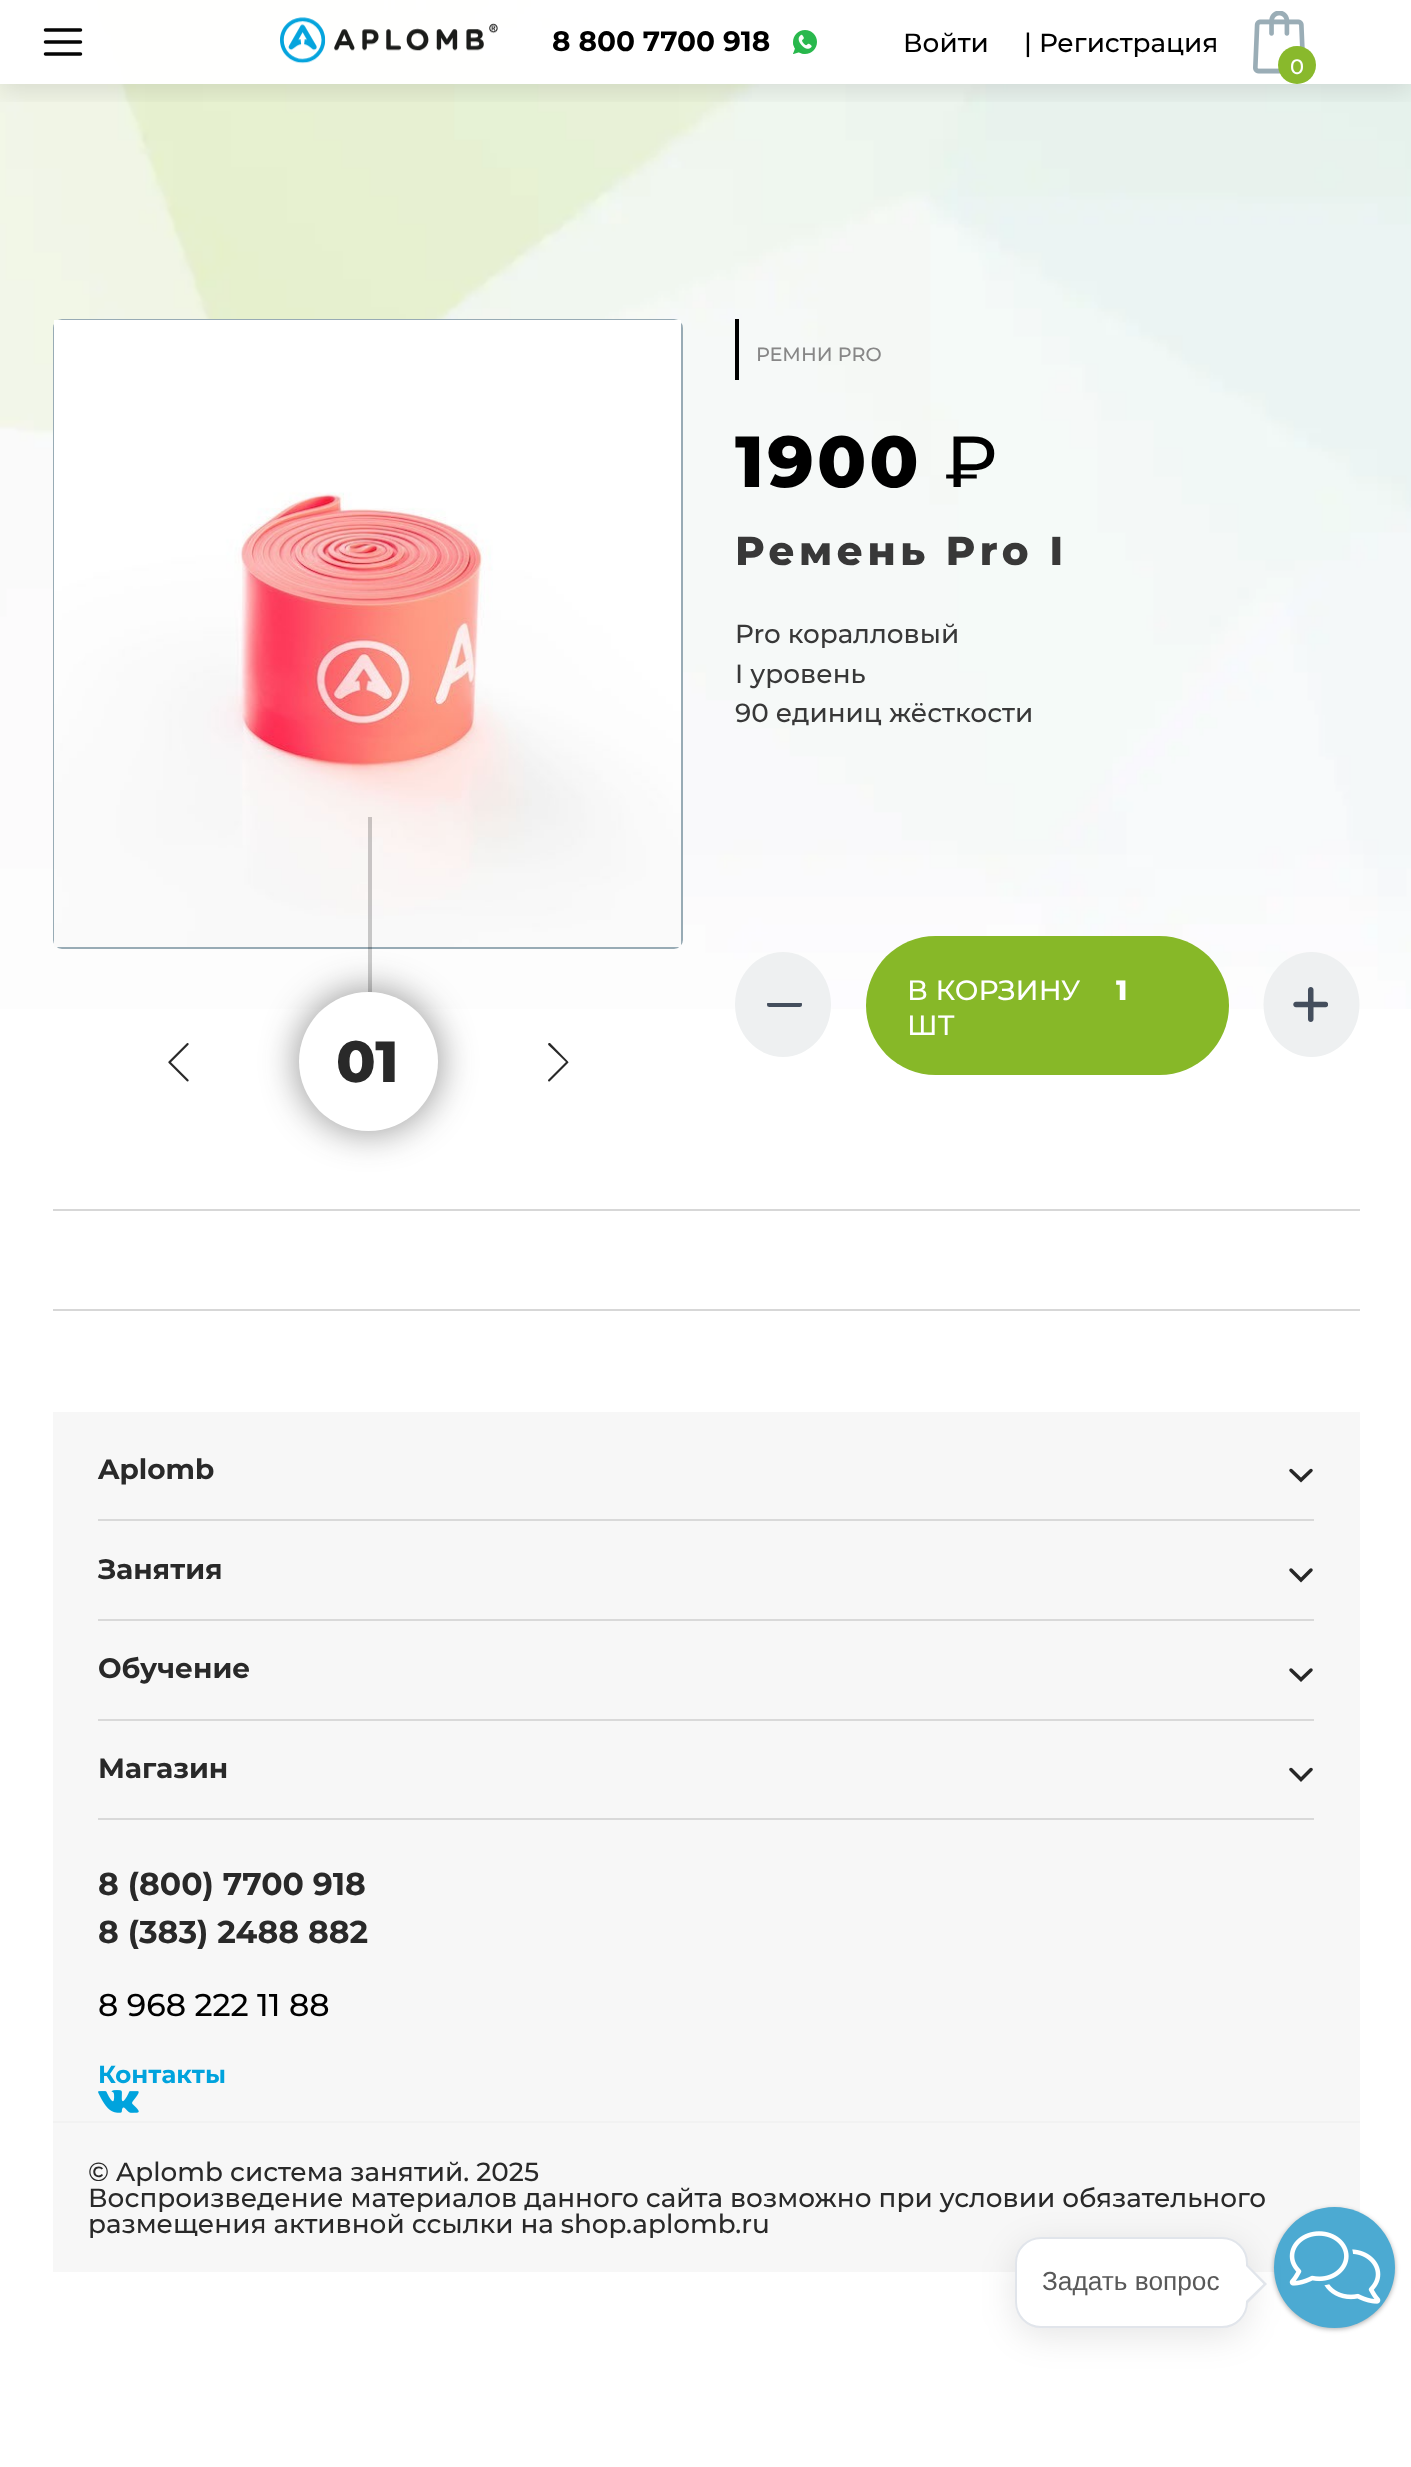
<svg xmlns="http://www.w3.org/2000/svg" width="1411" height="2467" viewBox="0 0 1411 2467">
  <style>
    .t1 { font: bold 28px Montserrat; fill: #000; }
    .t2 { font: 500 26.25px Montserrat; fill: #000; }
    .t3 { font: 500 21px Montserrat; fill: #fff; }
    .t4 { font: 500 19.25px Montserrat; fill: #878787; }
    .t5 { font: 800 72px Montserrat; letter-spacing: 3px; fill: #000; }
    .t6 { font: 500 72px Montserrat; letter-spacing: 3px; fill: #000; }
    .t7 { font: 800 40.25px Montserrat; letter-spacing: 4.5px; fill: #383838; }
    .t8 { font: 500 26.25px Montserrat; fill: #383838; }
    .t9 { font: 500 28px Montserrat; fill: #fff; }
    .t10 { font: 800 28px Montserrat; letter-spacing: 3px; fill: #fff; }
    .t11 { font: 800 58px Montserrat; fill: #292929; }
    .t12 { font: bold 28px Montserrat; fill: #292929; }
    .t13 { font: bold 31.5px Montserrat; fill: #292929; }
    .t14 { font: 500 31.5px Montserrat; fill: #000; }
    .t15 { font: bold 24.5px Montserrat; fill: #00a3dd; }
    .t16 { font: 500 26.25px Montserrat; fill: #292929; }
    .t17 { font: 26.25px Liberation Sans; fill: #595959; }
  </style>
  <defs>
    <clipPath id="clip1"><rect x="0" y="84" width="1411" height="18"/></clipPath>
    <clipPath id="clip2"><rect x="767" y="1003" width="35" height="5"/></clipPath>
  </defs>
  <rect width="100%" height="100%" fill="#fff"/>
  <image x="0" y="0" width="1411" height="1009" href="images/1.png"/>
  <g clip-path="url(#clip1)">
    <rect x="0" y="7" width="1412" height="84" fill="#0000001a" filter="blur(13px)"/>
  </g>
  <rect x="0" y="0" width="1411" height="84" fill="#fffffffa"/>
  <path d="M45.5 30H80.5M45.5 42H80.5M45.5 54H80.5" fill="none" stroke="#050505" stroke-width="3.5" stroke-linecap="round" stroke-linejoin="round"/>
  <image x="280" y="17" width="218" height="47" href="images/2.png"/>
  <text x="552" y="51" class="t1">8 800 7700 918</text>
  <image x="793" y="30" width="24" height="24" href="images/3.png"/>
  <text x="903" y="52" class="t2">Войти</text>
  <text x="1024" y="52" class="t2">| Регистрация</text>
  <image x="1253" y="11" width="52" height="63" href="images/4.png"/>
  <circle cx="1297" cy="65" r="19" fill="#89b92c"/>
  <text x="1290" y="74" class="t3">0</text>
  <rect x="735" y="319" width="4" height="61" fill="#000"/>
  <text x="756" y="361" class="t4">РЕМНИ PRO</text>
  <text x="735" y="487" class="t5">1900</text>
  <text x="944" y="487" class="t6">₽</text>
  <text x="735" y="565" class="t7">Ремень Pro I</text>
  <text x="735" y="643" class="t8">Pro коралловый</text>
  <text x="735" y="683" class="t8">I уровень</text>
  <text x="735" y="722" class="t8">90 единиц жёсткости</text>
  <ellipse cx="783" cy="1004.5" rx="48" ry="52.5" fill="#eef0f1"/>
  <g clip-path="url(#clip2)">
    <rect x="767" y="1002" width="35" height="5" rx="2.5" fill="#444e5d"/>
  </g>
  <rect x="866" y="936" width="363" height="139" rx="69.5" fill="#87b828"/>
  <text x="907" y="1000" class="t9">В КОРЗИНУ</text>
  <text x="1116" y="1000" class="t10">1</text>
  <text x="907" y="1035" class="t9">ШТ</text>
  <ellipse cx="1311.5" cy="1004.5" rx="48" ry="52.5" fill="#eef0f1"/>
  <image x="1293" y="987" width="35" height="35" href="images/5.png"/>
  <rect x="54" y="320" width="628" height="628" rx="8" fill="none" stroke="#98abb5" stroke-width="2"/>
  <image x="54" y="320" width="627" height="627" href="images/6.png"/>
  <rect x="296" y="989" width="145" height="145" rx="72.5" fill="#29292973" filter="blur(17.5px)"/>
  <circle cx="368.5" cy="1061.5" r="69.5" fill="#fff"/>
  <rect x="368" y="817" width="4" height="175" fill="#00000033"/>
  <image x="168" y="1043" width="21" height="39" href="images/7.png"/>
  <text x="336" y="1082" class="t11">01</text>
  <path d="M568 1061.5L550 1043H549C546.5 1044 549.5 1046 551.5 1048L566 1062L548 1080C548 1081 548.5 1081.5 549.5 1081.5L568.5 1062.5Z" fill="#292929"/>
  <rect x="53" y="1209" width="1307" height="2" fill="#d7d7d7"/>
  <rect x="53" y="1309" width="1307" height="2" fill="#d7d7d7"/>
  <rect x="53" y="1412" width="1307" height="860" fill="#f7f7f7"/>
  <rect x="53" y="2121" width="1307" height="2" fill="#f2f2f2"/>
  <rect x="98" y="1519" width="1216" height="2" fill="#d9d9d9"/>
  <text x="98" y="1479" class="t12">Aplomb</text>
  <path d="M1311 1470.5L1301 1480L1291 1470.5" fill="none" stroke="#272727" stroke-width="3.5" stroke-linecap="round"/>
  <rect x="98" y="1619" width="1216" height="2" fill="#d9d9d9"/>
  <text x="98" y="1579" class="t12">Занятия</text>
  <path d="M1311 1570L1301 1580L1291 1570" fill="none" stroke="#272727" stroke-width="3.5" stroke-linecap="round"/>
  <rect x="98" y="1719" width="1216" height="2" fill="#d9d9d9"/>
  <text x="98" y="1678" class="t12">Обучение</text>
  <path d="M1311 1670L1301 1679.5L1291 1670" fill="none" stroke="#272727" stroke-width="3.5" stroke-linecap="round"/>
  <rect x="98" y="1818" width="1216" height="2" fill="#d9d9d9"/>
  <text x="98" y="1778" class="t12">Магазин</text>
  <path d="M1311 1769.5L1301 1779.5L1291 1769.5" fill="none" stroke="#272727" stroke-width="3.5" stroke-linecap="round"/>
  <text x="98" y="1895" class="t13">8 (800) 7700 918</text>
  <text x="98" y="1943" class="t13">8 (383) 2488 882</text>
  <text x="98" y="2016" class="t14">8 968 222 11 88</text>
  <text x="98" y="2083" class="t15">Контакты</text>
  <image x="98" y="2090" width="41" height="23" href="images/8.png"/>
  <text x="88" y="2181" class="t16">© Aplomb cистема занятий. 2025</text>
  <text x="88" y="2207" class="t16">Воспроизведение материалов данного сайта возможно при условии обязательного</text>
  <text x="88" y="2233" class="t16">размещения активной ссылки на shop.aplomb.ru</text>
  <rect x="1274" y="2209" width="121" height="120" rx="60" fill="#00000054" filter="blur(2.5px)"/>
  <circle cx="1334.5" cy="2267.5" r="60.5" fill="#4caad2"/>
  <image x="1289" y="2231" width="92" height="73" href="images/9.png"/>
  <rect x="1015" y="2245" width="233" height="91" rx="26" fill="#0000001a" filter="blur(17.5px)"/>
  <rect x="1016" y="2238" width="231" height="89" rx="25" fill="#fff" stroke="#e1e5eb" stroke-width="2"/>
  <path d="M1246 2305V2263L1267 2284Z" fill="#e1e5eb"/>
  <text x="1042" y="2290" class="t17">Задать вопрос</text>
  <path d="M1246 2301V2266L1263.5 2284Z" fill="#fff"/>
</svg>
